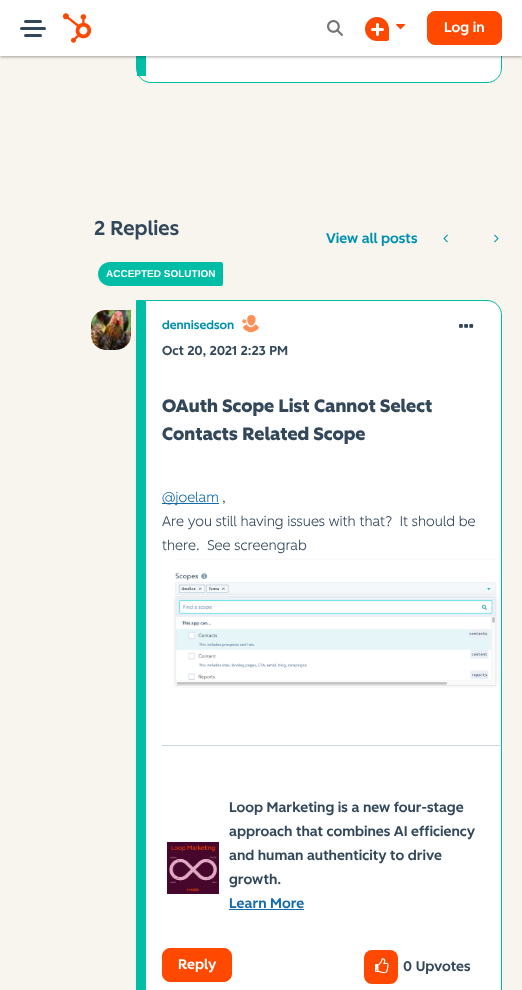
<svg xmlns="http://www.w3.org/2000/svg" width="522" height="990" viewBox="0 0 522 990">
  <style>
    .t1 { font: 500 14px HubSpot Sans; fill: #fff; }
    .t2 { font: 500 20px HubSpot Sans; fill: #33475b; }
    .t3 { font: 500 14px HubSpot Sans; fill: #0091b0; }
    .t4 { font: bold 10px Liberation Sans; fill: #fff; }
    .t5 { font: 500 12px HubSpot Sans; fill: #0091b0; }
    .t6 { font: 500 13px HubSpot Sans; fill: #33475b; }
    .t7 { font: bold 18px HubSpot Sans; fill: #33475b; }
    .t8 { font: 300 14px HubSpot Sans; fill: #146cac; }
    .t9 { font: 300 14px HubSpot Sans; fill: #33475b; }
    .t10 { font: 500 14px HubSpot Sans; fill: #33475b; }
    .t11 { font: 500 14px HubSpot Sans; fill: #146cac; }
  </style>
  <rect width="100%" height="100%" fill="#f8f5ee"/>
  <path d="M146-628H487C495-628 501-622 501-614V68C501 76 495 82 487 82H151C148 82 146 76 146 68Z" fill="#fff"/>
  <path d="M136.5-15.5H487C495-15.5 501.5-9 501.5-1V68C501.5 76 495 82.5 487 82.5H151C143 82.5 136.5 76 136.5 68Z" fill="none" stroke="#00bda5"/>
  <rect x="137" y="56" width="9" height="20" fill="#00bda5"/>
  <rect x="0" y="1" width="522" height="56" fill="#0000003d" filter="blur(1.5px)"/>
  <rect x="0" y="1" width="522" height="56" fill="#0000001f" filter="blur(1.5px)"/>
  <rect x="0" y="0" width="522" height="56" fill="#fff"/>
  <rect x="24" y="20" width="18" height="3" rx="1.5" fill="#33475b"/>
  <rect x="20" y="27" width="26" height="3" rx="1.5" fill="#33475b"/>
  <rect x="24" y="34" width="18" height="3" rx="1.5" fill="#33475b"/>
  <image x="62" y="13" width="30" height="30" href="images/1.png"/>
  <image x="327" y="20" width="16" height="16" href="images/2.png"/>
  <image x="365" y="17" width="24" height="24" href="images/3.png"/>
  <image x="396" y="24" width="10" height="6" href="images/4.png"/>
  <rect x="427.5" y="11.5" width="74" height="33" rx="7.5" fill="#ff4800" stroke="#ff4800"/>
  <text x="444" y="32" class="t1">Log in</text>
  <text x="94" y="235" class="t2">2 Replies</text>
  <text x="326" y="243" class="t3">View all posts</text>
  <image x="443" y="234" width="5" height="9" href="images/5.png"/>
  <image x="494" y="234" width="5" height="9" href="images/6.png"/>
  <path d="M110 262H221C222 262 223 263 223 264V284C223 285 222 286 221 286H110C103.5 286 98 280.5 98 274C98 267.5 103.5 262 110 262Z" fill="#00bda5"/>
  <text x="106" y="277" class="t4">ACCEPTED SOLUTION</text>
  <image x="91" y="310" width="40" height="40" href="images/7.png"/>
  <path d="M146 301H487C495 301 501 307 501 315V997C501 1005 495 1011 487 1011H151C148 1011 146 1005 146 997Z" fill="#fff"/>
  <path d="M136.5 300.5H487C495 300.5 501.5 307 501.5 315V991C501.5 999 495 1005.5 487 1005.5H151C143 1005.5 136.5 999 136.5 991Z" fill="none" stroke="#00bda5"/>
  <rect x="137" y="301" width="9" height="689" fill="#00bda5"/>
  <text x="162" y="329" class="t5">dennisedson</text>
  <image x="242" y="315" width="17" height="18" href="images/8.png"/>
  <text x="162" y="355" class="t6">Oct 20, 2021 2:23 PM</text>
  <image x="459" y="324" width="15" height="4" href="images/9.png"/>
  <text x="162" y="412" class="t7">OAuth Scope List Cannot Select</text>
  <text x="162" y="440" class="t7">Contacts Related Scope</text>
  <rect x="162" y="503" width="57" height="1" fill="#146cac"/>
  <text x="162" y="502" class="t8">@joelam</text>
  <text x="222" y="502" class="t9">,</text>
  <text x="162" y="526" class="t9" xml:space="preserve">Are you still having issues with that?  It should be</text>
  <text x="162" y="550" class="t9" xml:space="preserve">there.  See screengrab</text>
  <image x="173" y="558" width="328" height="130" href="images/10.png"/>
  <rect x="162" y="745" width="339" height="1" fill="#cbd6e2"/>
  <image x="167" y="842" width="52" height="52" href="images/11.png"/>
  <text x="229" y="812" class="t10">Loop Marketing is a new four-stage</text>
  <text x="229" y="836" class="t10">approach that combines AI efficiency</text>
  <text x="229" y="860" class="t10">and human authenticity to drive</text>
  <text x="229" y="884" class="t10">growth.</text>
  <text x="229" y="908" class="t11">Learn More</text>
  <rect x="229" y="909" width="75" height="1" fill="#146cac"/>
  <rect x="162.5" y="948.5" width="69" height="33" rx="7.5" fill="#ff4800" stroke="#ff4800"/>
  <text x="178" y="969" class="t1">Reply</text>
  <rect x="364" y="950" width="34" height="34" rx="8" fill="#ff4800"/>
  <image x="375" y="958" width="14" height="16" href="images/12.png"/>
  <text x="403" y="971" class="t10">0 Upvotes</text>
</svg>
